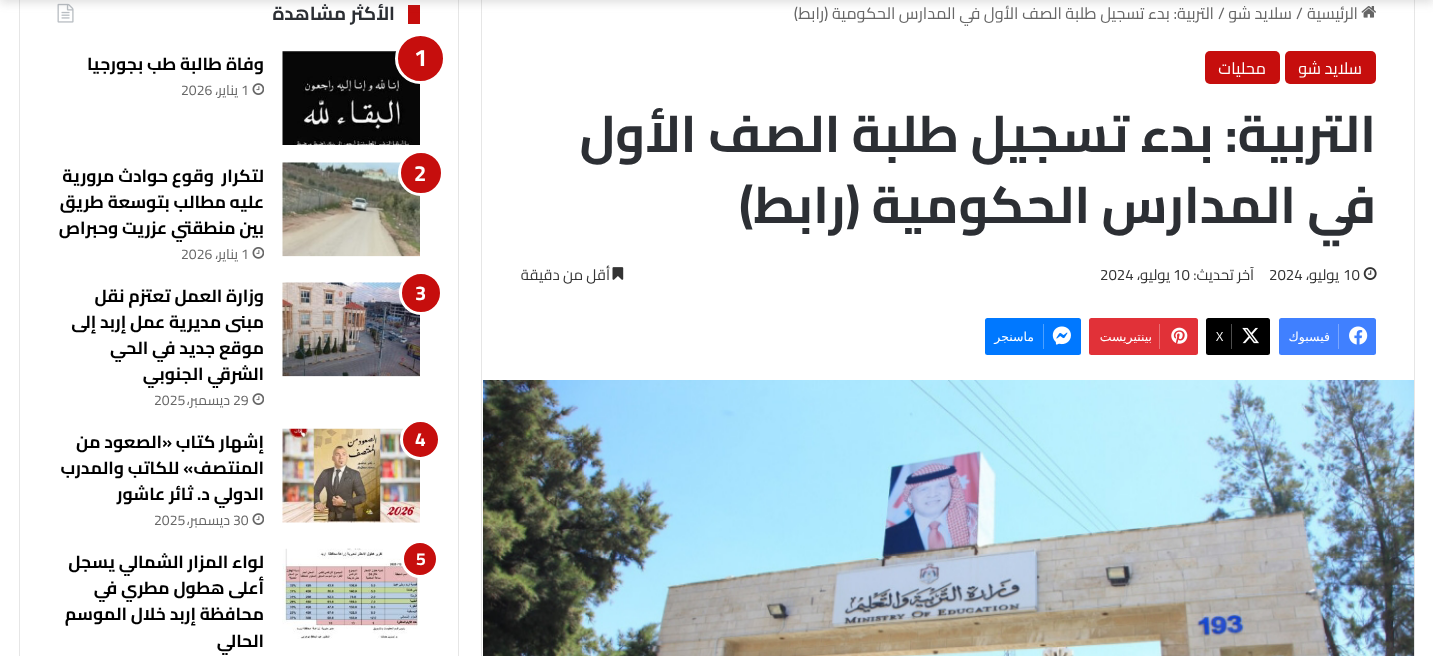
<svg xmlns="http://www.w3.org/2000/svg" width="1433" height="656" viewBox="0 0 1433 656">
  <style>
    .t1 { font: 16.25px Cairo; direction: rtl; fill: #666; }
    .t2 { font: 16.25px Cairo; fill: #666; }
    .t3 { font: 16.25px Cairo; direction: rtl; fill: #fff; }
    .t4 { font: bold 51.25px Cairo; direction: rtl; fill: #2c2f34; }
    .t5 { font: 15px Cairo; fill: #333; }
    .t6 { font: 15px Cairo; direction: rtl; fill: #333; }
    .t7 { font: 12.5px DejaVu Sans; direction: rtl; fill: #fff; }
    .t8 { font: 12.5px Open Sans; fill: #fff; }
    .t9 { font: bold 18.75px Cairo; direction: rtl; fill: #2c2f34; }
    .t10 { font: bold 24px Cairo; fill: #fff; }
    .t11 { font: bold 17.5px Cairo; direction: rtl; fill: #000; }
    .t12 { font: 14px Cairo; fill: #666; }
    .t13 { font: 14px Cairo; direction: rtl; fill: #666; }
    .t14 { font: bold 22px Cairo; fill: #fff; }
    .t15 { font: bold 20px Cairo; fill: #fff; }
    .t16 { font: bold 19px Cairo; fill: #fff; }
    .t17 { font: bold 17.5px Cairo; fill: #fff; }
  </style>
  <rect width="100%" height="100%" fill="#fff"/>
  <rect x="481.5" y="-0.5" width="933" height="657" fill="none" stroke="#e6e6e6"/>
  <image x="1361" y="6" width="15" height="12" href="images/1.png"/>
  <rect x="19.5" y="-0.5" width="439" height="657" fill="none" stroke="#e6e6e6"/>
  <rect x="408" y="5" width="12" height="19" fill="#c60e0d"/>
  <image x="57" y="3" width="17" height="20" href="images/9.png"/>
  <rect x="0" y="-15" width="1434" height="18" fill="#63636333" filter="blur(5px)"/>
  <text x="1358" y="19" class="t1">الرئيسية</text>
  <text x="1296" y="19" class="t2">/</text>
  <text x="1292" y="19" class="t1">سلايد شو</text>
  <text x="1218" y="19" class="t2">/</text>
  <text x="1214" y="19" class="t1">التربية: بدء تسجيل طلبة الصف الأول في المدارس الحكومية (رابط)</text>
  <rect x="1285" y="51" width="91" height="33" rx="5" fill="#c60e0d"/>
  <text x="1362" y="74" class="t3">سلايد شو</text>
  <rect x="1205" y="51" width="75" height="33" rx="5" fill="#c60e0d"/>
  <text x="1266" y="74" class="t3">محليات</text>
  <text x="1376" y="152" class="t4">التربية: بدء تسجيل طلبة الصف الأول</text>
  <text x="1376" y="223" class="t4">في المدارس الحكومية (رابط)</text>
  <image x="1363" y="267" width="14" height="13" href="images/2.png"/>
  <text x="1343" y="280" class="t5">10</text>
  <text x="1339" y="280" class="t6">يوليو،</text>
  <text x="1269" y="280" class="t5">2024</text>
  <text x="1254" y="280" class="t6">آخر تحديث:</text>
  <text x="1173" y="280" class="t5">10</text>
  <text x="1170" y="280" class="t6">يوليو،</text>
  <text x="1100" y="280" class="t5">2024</text>
  <image x="612" y="267" width="12" height="13" href="images/3.png"/>
  <text x="610" y="280" class="t6">أقل من دقيقة</text>
  <rect x="1279" y="318" width="97" height="37" rx="2.5" fill="#4080ff"/>
  <image x="1349" y="326" width="19" height="19" href="images/4.png"/>
  <rect x="1338" y="324" width="1" height="25" fill="#79a6ff"/>
  <text x="1330" y="341" class="t7">فيسبوك</text>
  <rect x="1206" y="318" width="64" height="37" rx="2.5" fill="#000"/>
  <image x="1242" y="327" width="17" height="17" href="images/5.png"/>
  <rect x="1231" y="324" width="1" height="25" fill="#4d4d4d"/>
  <text x="1216" y="341" class="t8">X</text>
  <rect x="1089" y="318" width="109" height="37" rx="2.5" fill="#e13138"/>
  <image x="1171" y="327" width="17" height="17" href="images/6.png"/>
  <rect x="1159" y="324" width="1" height="25" fill="#ea6f74"/>
  <text x="1152" y="341" class="t7">بينتيريست</text>
  <rect x="985" y="318" width="96" height="37" rx="2.5" fill="#0078ff"/>
  <image x="1052" y="326" width="19" height="19" href="images/7.png"/>
  <rect x="1043" y="324" width="1" height="25" fill="#4da1ff"/>
  <text x="1034" y="341" class="t7">ماسنجر</text>
  <image x="483" y="380" width="931" height="276" href="images/8.png"/>
  <text x="395" y="20" class="t9">الأكثر مشاهدة</text>
  <image x="282" y="51" width="138" height="94" href="images/10.png"/>
  <circle cx="420.5" cy="58.5" r="24" fill="#c60e0d" stroke="#fff" stroke-width="3"/>
  <text x="414" y="66" class="t10">1</text>
  <text x="264" y="70" class="t11">وفاة طالبة طب بجورجيا</text>
  <image x="252" y="83" width="12" height="12" href="images/11.png"/>
  <text x="241" y="95" class="t12">1</text>
  <text x="238" y="95" class="t13">يناير،</text>
  <text x="181" y="95" class="t12">2026</text>
  <image x="282" y="162" width="138" height="95" href="images/12.png"/>
  <circle cx="421" cy="173" r="21.5" fill="#c60e0d" stroke="#fff" stroke-width="3"/>
  <text x="414" y="181" class="t14">2</text>
  <text x="264" y="182" class="t11" xml:space="preserve">لتكرار  وقوع حوادث مرورية</text>
  <text x="264" y="208" class="t11">عليه</text>
  <text x="226" y="208" class="t11">مطالب بتوسعة طريق</text>
  <text x="264" y="234" class="t11">بين منطقتي عزريت وحبراص</text>
  <image x="252" y="247" width="12" height="12" href="images/13.png"/>
  <text x="241" y="259" class="t12">1</text>
  <text x="238" y="259" class="t13">يناير،</text>
  <text x="181" y="259" class="t12">2026</text>
  <image x="282" y="282" width="138" height="95" href="images/14.png"/>
  <circle cx="421" cy="293" r="20.5" fill="#c60e0d" stroke="#fff" stroke-width="3"/>
  <text x="415" y="300" class="t15">3</text>
  <text x="264" y="302" class="t11">وزارة العمل تعتزم نقل</text>
  <text x="264" y="328" class="t11">مبنى مديرية عمل إربد إلى</text>
  <text x="264" y="354" class="t11">موقع جديد في الحي</text>
  <text x="264" y="380" class="t11">الشرقي الجنوبي</text>
  <image x="252" y="393" width="12" height="12" href="images/11.png"/>
  <text x="233" y="405" class="t12">29</text>
  <text x="230" y="405" class="t13">ديسمبر،</text>
  <text x="154" y="405" class="t12">2025</text>
  <image x="282" y="428" width="138" height="95" href="images/15.png"/>
  <circle cx="420.5" cy="439.5" r="19" fill="#c60e0d" stroke="#fff" stroke-width="3"/>
  <text x="415" y="446" class="t16">4</text>
  <text x="264" y="448" class="t11">إشهار كتاب «الصعود من</text>
  <text x="264" y="474" class="t11">المنتصف» للكاتب والمدرب</text>
  <text x="264" y="500" class="t11">الدولي د. ثائر عاشور</text>
  <image x="252" y="513" width="12" height="12" href="images/11.png"/>
  <text x="233" y="525" class="t12">30</text>
  <text x="230" y="525" class="t13">ديسمبر،</text>
  <text x="154" y="525" class="t12">2025</text>
  <image x="282" y="548" width="138" height="91" href="images/16.png"/>
  <circle cx="420" cy="559" r="17.5" fill="#c60e0d" stroke="#fff" stroke-width="3"/>
  <text x="416" y="565" class="t17">5</text>
  <text x="264" y="568" class="t11">لواء المزار الشمالي يسجل</text>
  <text x="264" y="594" class="t11">أعلى هطول مطري في</text>
  <text x="264" y="620" class="t11">محافظة إربد خلال الموسم</text>
  <text x="264" y="647" class="t11">الحالي</text>
</svg>
